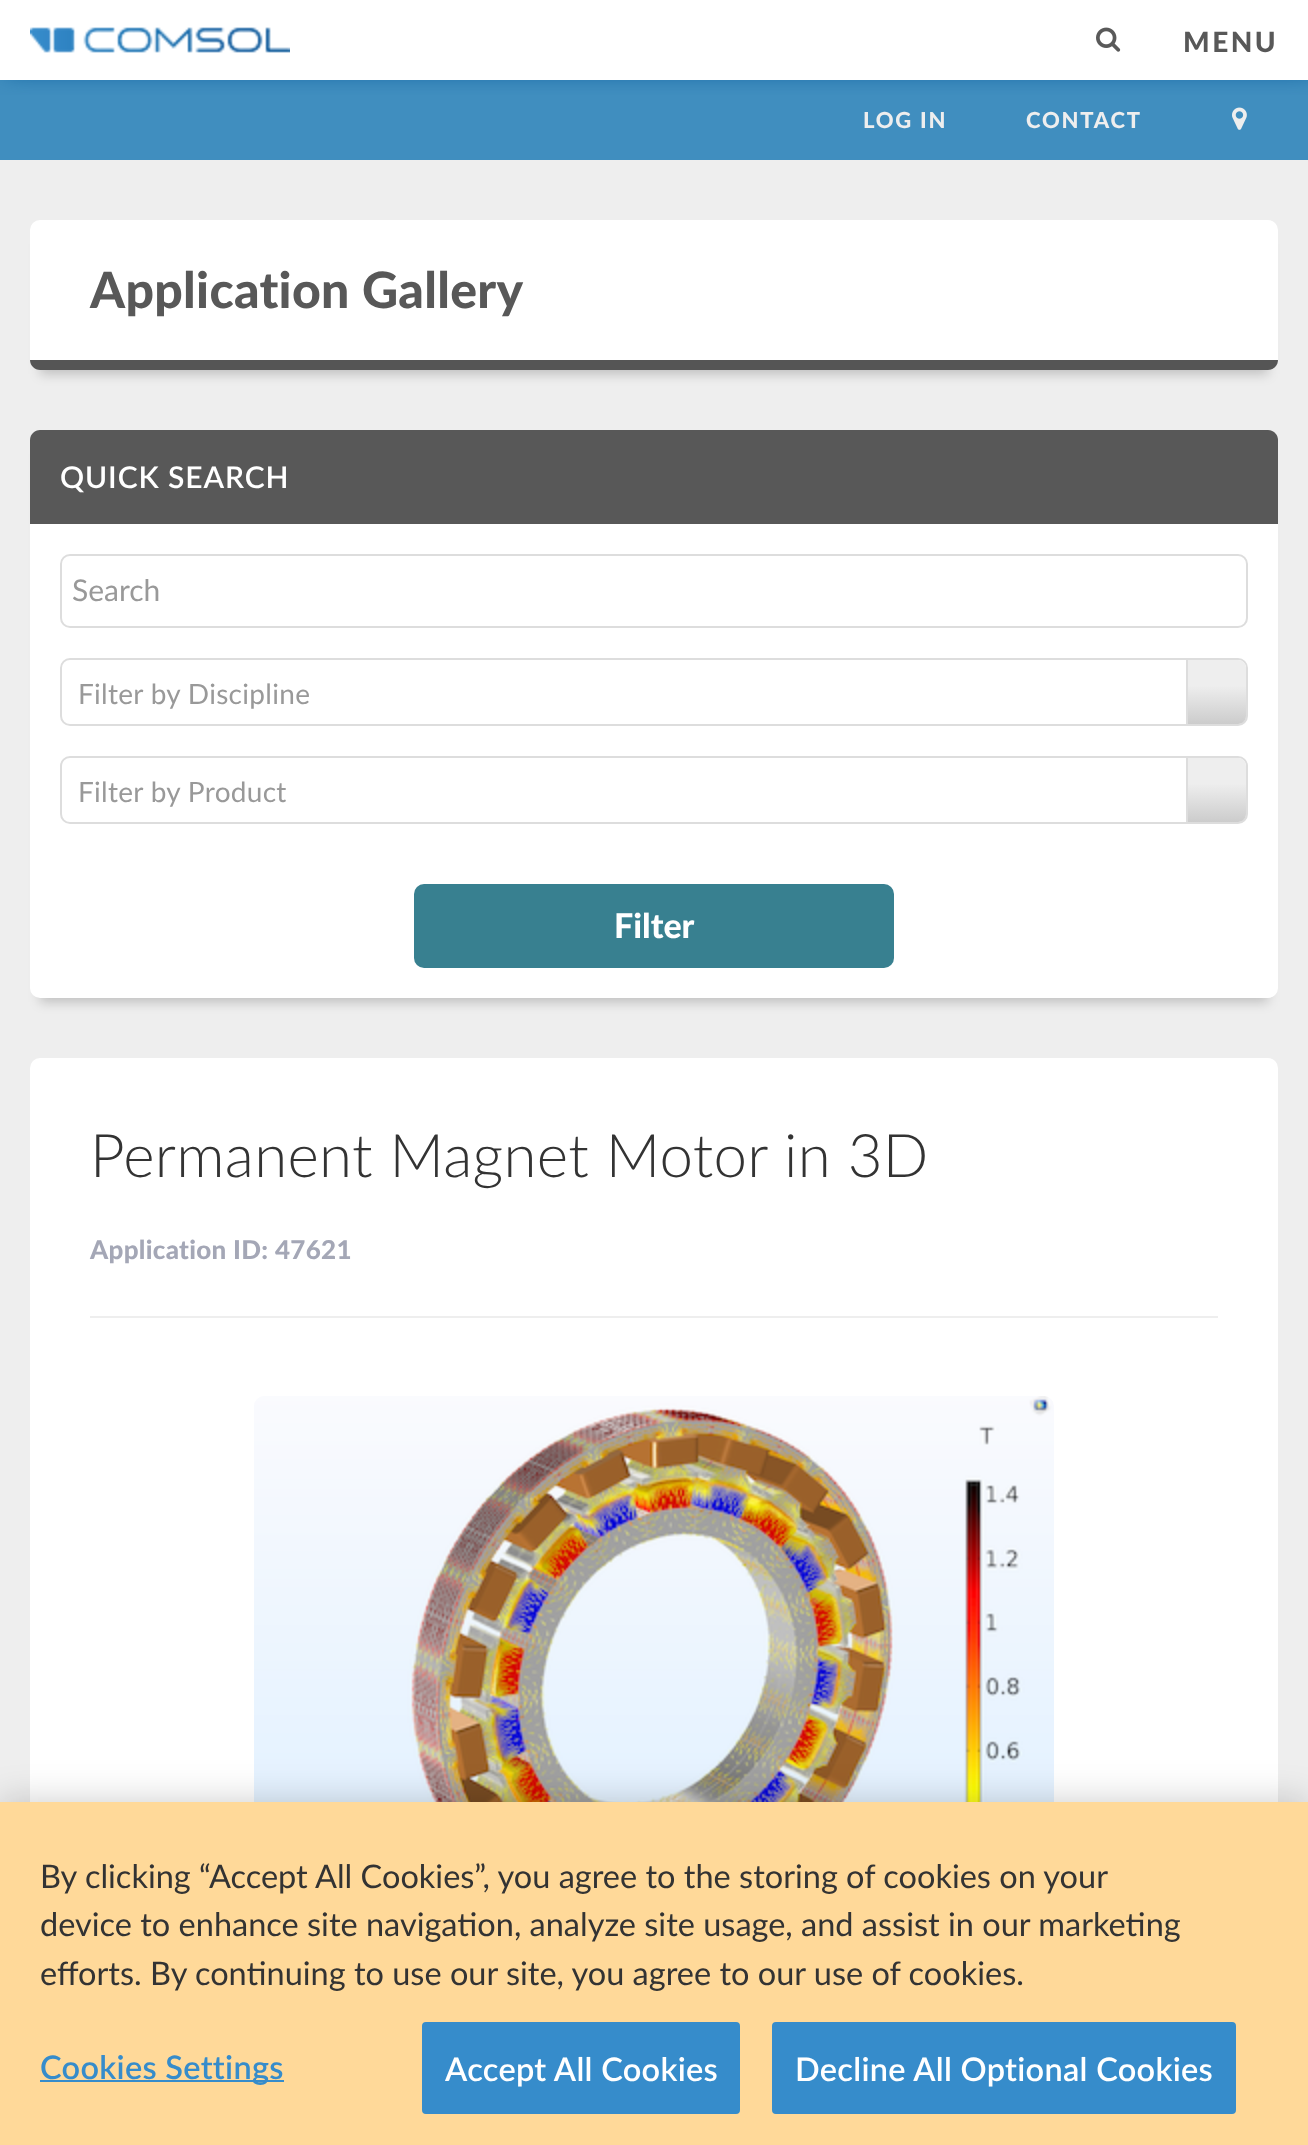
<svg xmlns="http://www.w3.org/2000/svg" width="1308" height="2145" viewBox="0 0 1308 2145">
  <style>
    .t1 { font: 900 28px Lato; letter-spacing: 2.5px; fill: #585858; }
    .t2 { font: 900 22px Lato; letter-spacing: 1.75px; fill: #eee; }
    .t3 { font: 900 50px Lato; letter-spacing: 0.3px; fill: #585858; }
    .t4 { font: 600 30px Lato; letter-spacing: 0.9px; fill: #fff; }
    .t5 { font: 30px Lato; fill: #999; }
    .t6 { font: 28px Lato; letter-spacing: 0.3px; fill: #999; }
    .t7 { font: 900 34px Lato; fill: #fff; }
    .t8 { font: 300 60px Lato; letter-spacing: 0.3px; fill: #333; }
    .t9 { font: 900 26px Lato; letter-spacing: 0.3px; fill: #a4a7b6; }
    .t10 { font: 32.5px Lato; fill: #333; }
    .t11 { font: 600 32.5px Lato; letter-spacing: 0.3px; fill: #368ccb; }
    .t12 { font: 600 32.5px Lato; letter-spacing: 0.3px; fill: #fff; }
  </style>
  <defs>
    <clipPath id="clip1"><rect x="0" y="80" width="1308" height="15"/></clipPath>
    <linearGradient id="g1" gradientUnits="userSpaceOnUse" x1="1188" y1="724" x2="1188" y2="660"><stop offset="0" stop-color="#ccc"/><stop offset="0.6" stop-color="#eee"/></linearGradient>
    <linearGradient id="g2" gradientUnits="userSpaceOnUse" x1="1188" y1="822" x2="1188" y2="758"><stop offset="0" stop-color="#ccc"/><stop offset="0.6" stop-color="#eee"/></linearGradient>
  </defs>
  <rect width="100%" height="100%" fill="#fff"/>
  <rect x="0" y="80" width="1308" height="80" fill="#408ebf"/>
  <g clip-path="url(#clip1)">
    <rect x="6" y="-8" width="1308" height="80" fill="#005596" filter="blur(11px)"/>
  </g>
  <image x="30" y="27" width="260" height="26" href="images/1.png"/>
  <image x="1096" y="27" width="25" height="25" href="images/2.png"/>
  <text x="1183" y="52" class="t1">MENU</text>
  <text x="863" y="128" class="t2">LOG IN</text>
  <text x="1026" y="128" class="t2">CONTACT</text>
  <image x="1232" y="107" width="15" height="23" href="images/3.png"/>
  <rect x="0" y="160" width="1308" height="1642" fill="#eee"/>
  <rect x="40" y="244" width="1228" height="130" fill="#00000033" filter="blur(6px)"/>
  <rect x="30" y="220" width="1248" height="150" rx="10" fill="#fff"/>
  <path d="M30 360H1278C1278 365.5 1273.5 370 1268 370H40C34.5 370 30 365.5 30 360Z" fill="#555"/>
  <text x="90" y="308" class="t3">Application Gallery</text>
  <rect x="40" y="454" width="1228" height="548" fill="#00000033" filter="blur(6px)"/>
  <rect x="30" y="430" width="1248" height="568" rx="10" fill="#fff"/>
  <path d="M40 430H1268C1273.5 430 1278 434.5 1278 440V524H30V440C30 434.5 34.5 430 40 430Z" fill="#585858"/>
  <text x="60" y="488" class="t4">QUICK SEARCH</text>
  <rect x="61" y="555" width="1186" height="72" rx="9" fill="none" stroke="#ddd" stroke-width="2"/>
  <text x="72" y="601" class="t5">Search</text>
  <rect x="61" y="659" width="1186" height="66" rx="9" fill="none" stroke="#ddd" stroke-width="2"/>
  <text x="78" y="704" class="t6">Filter by Discipline</text>
  <path d="M1186 660H1238C1242.5 660 1246 663.5 1246 668V716C1246 720.5 1242.5 724 1238 724H1186Z" fill="url(#g1)"/>
  <rect x="1186" y="660" width="2" height="64" fill="#ddd"/>
  <rect x="61" y="757" width="1186" height="66" rx="9" fill="none" stroke="#ddd" stroke-width="2"/>
  <text x="78" y="802" class="t6">Filter by Product</text>
  <path d="M1186 758H1238C1242.5 758 1246 761.5 1246 766V814C1246 818.5 1242.5 822 1238 822H1186Z" fill="url(#g2)"/>
  <rect x="1186" y="758" width="2" height="64" fill="#ddd"/>
  <rect x="414" y="884" width="480" height="84" rx="10" fill="#388090"/>
  <text x="614" y="938" class="t7">Filter</text>
  <rect x="30" y="1058" width="1248" height="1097" rx="10" fill="#fff"/>
  <text x="90" y="1177" class="t8">Permanent Magnet Motor in 3D</text>
  <text x="90" y="1259" class="t9">Application ID: 47621</text>
  <rect x="90" y="1316" width="1128" height="2" fill="#eee"/>
  <image x="254" y="1396" width="800" height="406" href="images/4.png"/>
  <rect x="0" y="1802" width="1308" height="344" fill="#00000033" filter="blur(18px)"/>
  <rect x="0" y="1802" width="1308" height="343" fill="#ffd999"/>
  <text x="40" y="1888" class="t10">By clicking “Accept All Cookies”, you agree to the storing of cookies on your</text>
  <text x="40" y="1936" class="t10">device to enhance site navigation, analyze site usage, and assist in our marketing</text>
  <text x="40" y="1985" class="t10">efforts. By continuing to use our site, you agree to our use of cookies.</text>
  <rect x="40" y="2080" width="244" height="2" fill="#368ccb"/>
  <text x="40" y="2079" class="t11">Cookies Settings</text>
  <rect x="423" y="2023" width="316" height="90" rx="3" fill="#368ccb" stroke="#368ccb" stroke-width="2"/>
  <text x="445" y="2081" class="t12">Accept All Cookies</text>
  <rect x="773" y="2023" width="462" height="90" rx="3" fill="#368ccb" stroke="#368ccb" stroke-width="2"/>
  <text x="795" y="2081" class="t12">Decline All Optional Cookies</text>
</svg>
